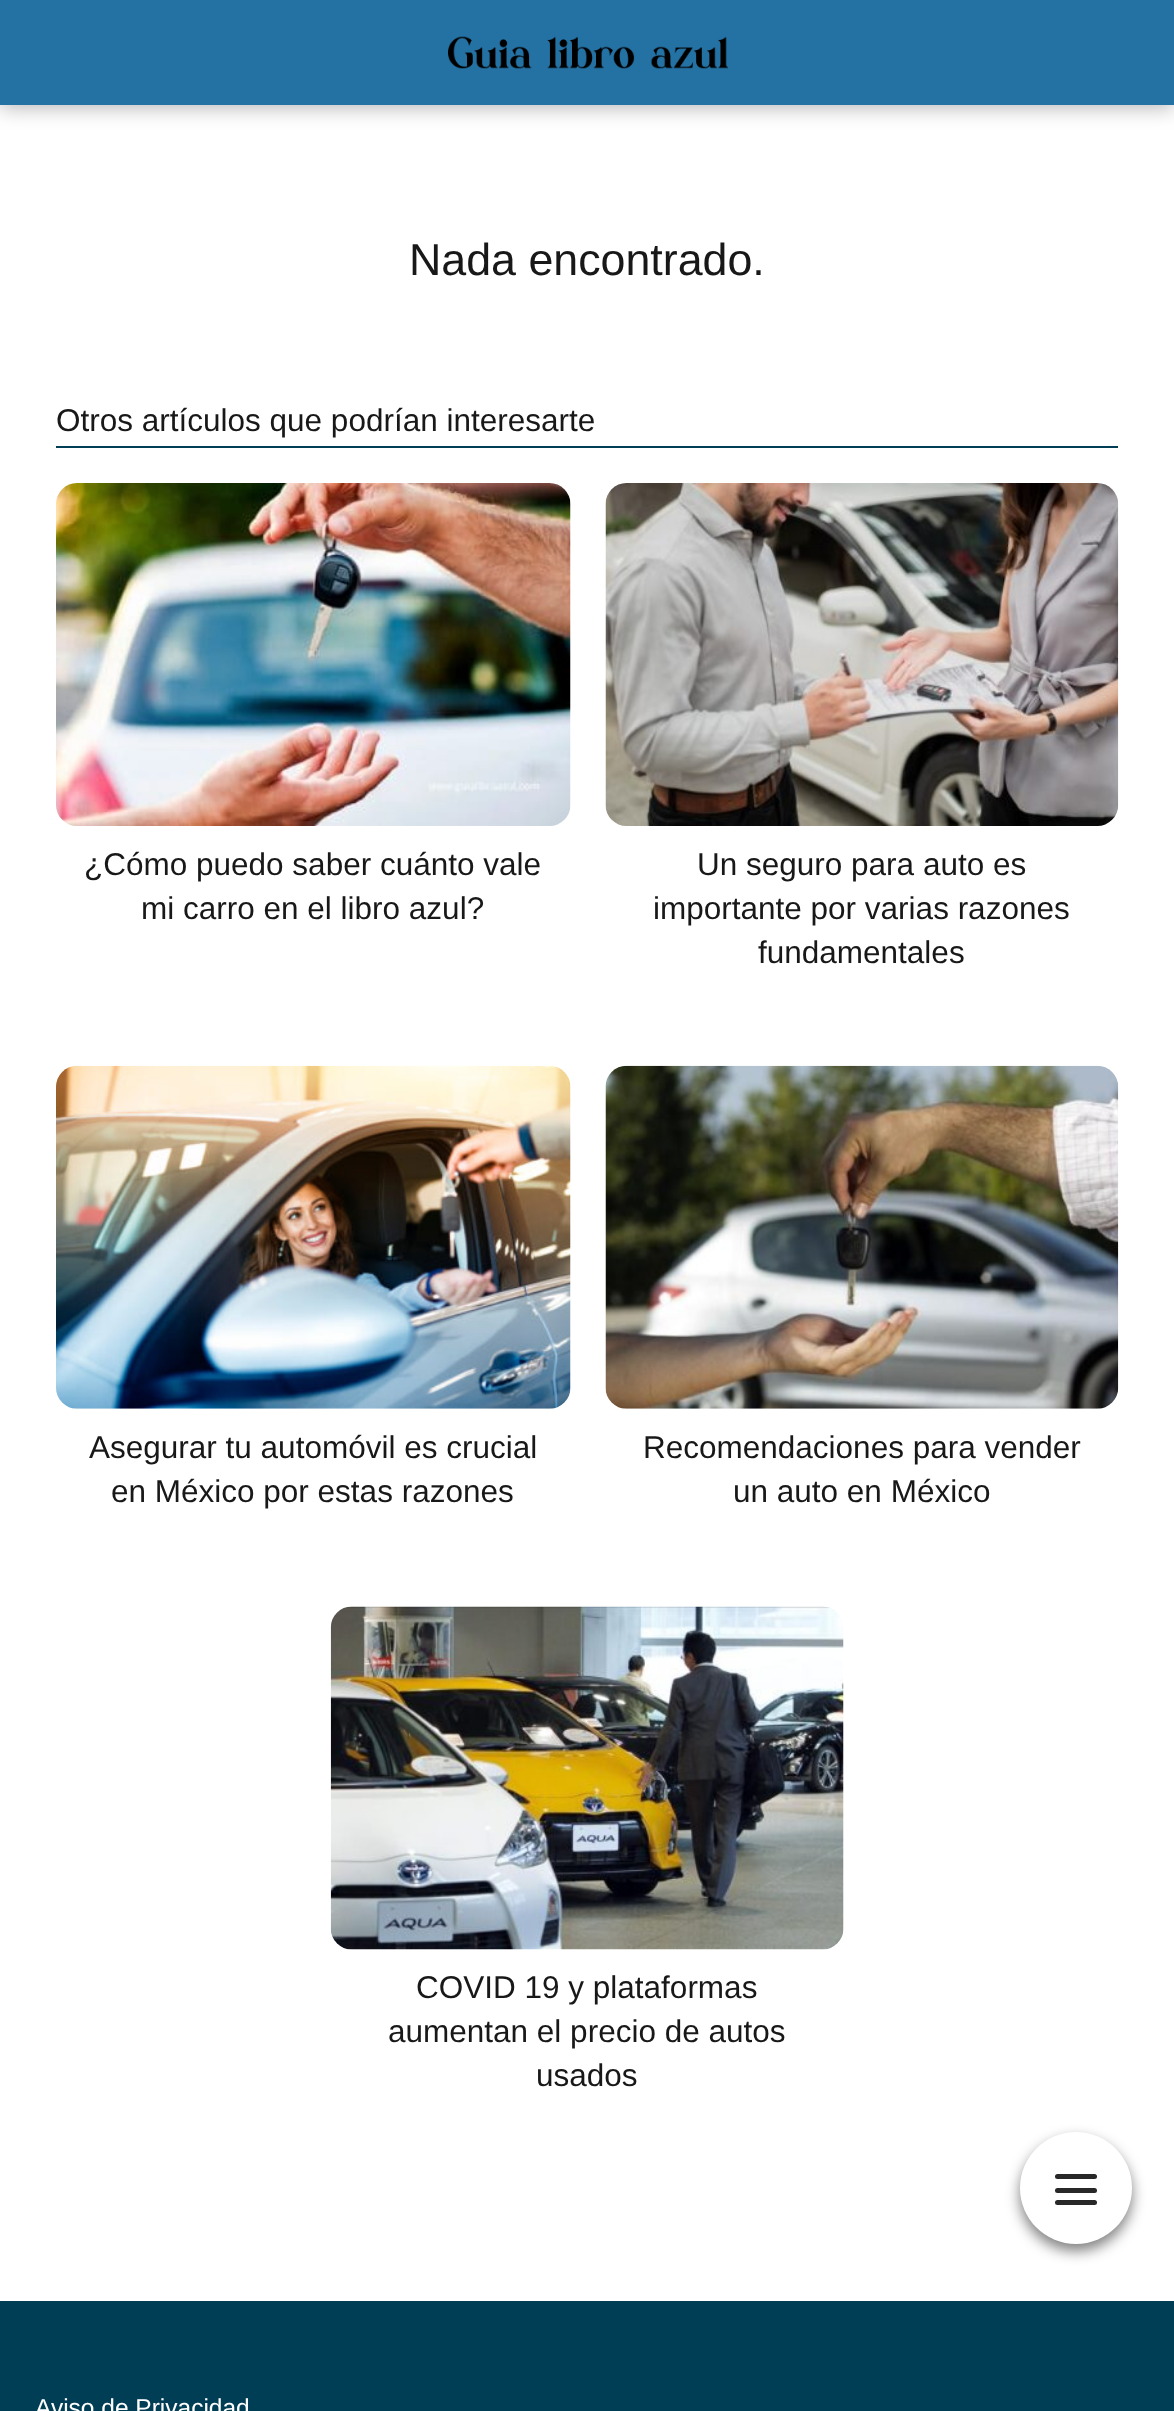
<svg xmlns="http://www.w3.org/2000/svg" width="1174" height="2411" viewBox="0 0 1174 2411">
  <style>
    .t1 { font: 44.75px Liberation Sans; fill: #181818; }
    .t2 { font: 31.5px Liberation Sans; fill: #181818; }
    .t3 { font: 24.5px Liberation Sans; fill: #fff; }
  </style>
  <rect width="100%" height="100%" fill="#fff"/>
  <rect x="0" y="2" width="1174" height="105" fill="#0000004d" filter="blur(10.5px)"/>
  <rect x="0" y="0" width="1174" height="105" fill="#2471a3"/>
  <image x="448" y="36" width="280" height="33" href="images/1.png"/>
  <text x="409" y="275" class="t1">Nada encontrado.</text>
  <rect x="56" y="446" width="1062" height="2" fill="#003e55"/>
  <text x="56" y="431" class="t2">Otros artículos que podrían interesarte</text>
  <image x="56" y="483" width="515" height="343" href="images/2.png"/>
  <text x="84" y="875" class="t2">¿Cómo puedo saber cuánto vale</text>
  <text x="141" y="919" class="t2">mi carro en el libro azul?</text>
  <image x="605" y="483" width="514" height="343" href="images/3.png"/>
  <text x="697" y="875" class="t2">Un seguro para auto es</text>
  <text x="653" y="919" class="t2">importante por varias razones</text>
  <text x="758" y="963" class="t2">fundamentales</text>
  <image x="56" y="1065" width="515" height="344" href="images/4.png"/>
  <text x="89" y="1458" class="t2">Asegurar tu automóvil es crucial</text>
  <text x="111" y="1502" class="t2">en México por estas razones</text>
  <image x="605" y="1065" width="514" height="344" href="images/5.png"/>
  <text x="643" y="1458" class="t2">Recomendaciones para vender</text>
  <text x="733" y="1502" class="t2">un auto en México</text>
  <image x="330" y="1606" width="514" height="344" href="images/6.png"/>
  <text x="416" y="1998" class="t2">COVID 19 y plataformas</text>
  <text x="388" y="2042" class="t2">aumentan el precio de autos</text>
  <text x="536" y="2086" class="t2">usados</text>
  <rect x="1020" y="2139" width="112" height="112" rx="56" fill="#00000080" filter="blur(7px)"/>
  <circle cx="1076" cy="2188" r="56" fill="#fff"/>
  <rect x="1055" y="2174" width="42" height="5" rx="2.5" fill="#282828"/>
  <rect x="1055" y="2188" width="42" height="5" rx="2.5" fill="#282828"/>
  <rect x="1055" y="2200" width="42" height="5" rx="2.5" fill="#282828"/>
  <rect x="0" y="2301" width="1174" height="110" fill="#003e55"/>
  <text x="35" y="2416" class="t3">Aviso de Privacidad</text>
</svg>
